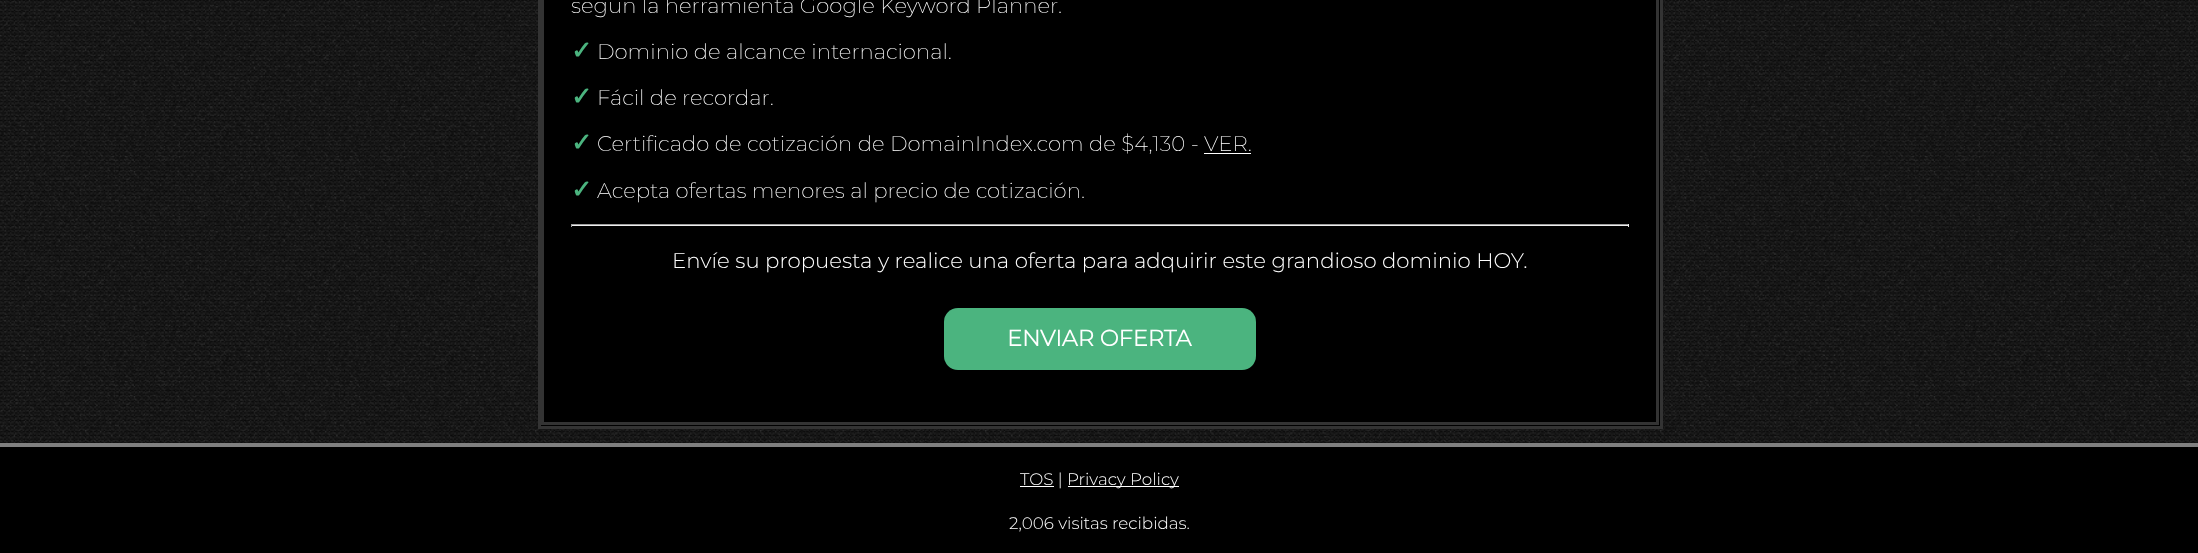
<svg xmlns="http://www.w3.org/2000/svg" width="2198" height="553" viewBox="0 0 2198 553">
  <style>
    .t1 { font: 200 21.25px Montserrat; fill: #fff; }
    .t2 { font: bold 25px DejaVu Sans; fill: #4bb47f; }
    .t3 { font: 300 21.25px Montserrat; fill: #fff; }
    .t4 { font: bold 22.5px Montserrat; fill: #fff; }
    .t5 { font: 300 16.75px Montserrat; fill: #fff; }
  </style>
  <rect width="100%" height="100%" fill="#fff"/>
  <image x="0" y="0" width="2198" height="443" href="images/1.png"/>
  <rect x="539.5" y="-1.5" width="1122" height="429" fill="#000" stroke="#333" stroke-width="3"/>
  <rect x="542.5" y="-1.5" width="1115" height="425" fill="none" stroke="#333" stroke-width="3"/>
  <text x="571" y="13" class="t1">según la herramienta Google Keyword Planner.</text>
  <text x="571" y="59" class="t2">✓</text>
  <text x="597" y="59" class="t1">Dominio de alcance internacional.</text>
  <text x="571" y="105" class="t2">✓</text>
  <text x="597" y="105" class="t1">Fácil de recordar.</text>
  <text x="571" y="151" class="t2">✓</text>
  <text x="597" y="151" class="t1">Certificado de cotización de DomainIndex.com de $4,130 - VER.</text>
  <rect x="1204" y="153" width="47" height="1" fill="#fff"/>
  <text x="571" y="198" class="t2">✓</text>
  <text x="597" y="198" class="t1">Acepta ofertas menores al precio de cotización.</text>
  <rect x="571" y="224" width="1058" height="1" fill="#9f9f9f"/>
  <rect x="1628" y="224" width="1" height="3" fill="#eee"/>
  <rect x="571" y="225" width="1058" height="1" fill="#eee"/>
  <rect x="571" y="224" width="1" height="3" fill="#9f9f9f"/>
  <text x="672" y="268" class="t3">Envíe su propuesta y realice una oferta para adquirir este grandioso dominio HOY.</text>
  <rect x="944" y="308" width="312" height="62" rx="14" fill="#4bb47f"/>
  <text x="1007" y="346" class="t4">ENVIAR OFERTA</text>
  <rect x="0" y="447" width="2198" height="106" fill="#000"/>
  <rect x="0" y="443" width="2198" height="4" fill="#808080"/>
  <rect x="1020" y="486" width="34" height="1" fill="#fff"/>
  <text x="1020" y="485" class="t5">TOS |</text>
  <rect x="1068" y="486" width="111" height="1" fill="#fff"/>
  <text x="1067" y="485" class="t5">Privacy Policy</text>
  <text x="1009" y="529" class="t5">2,006 visitas recibidas.</text>
</svg>
